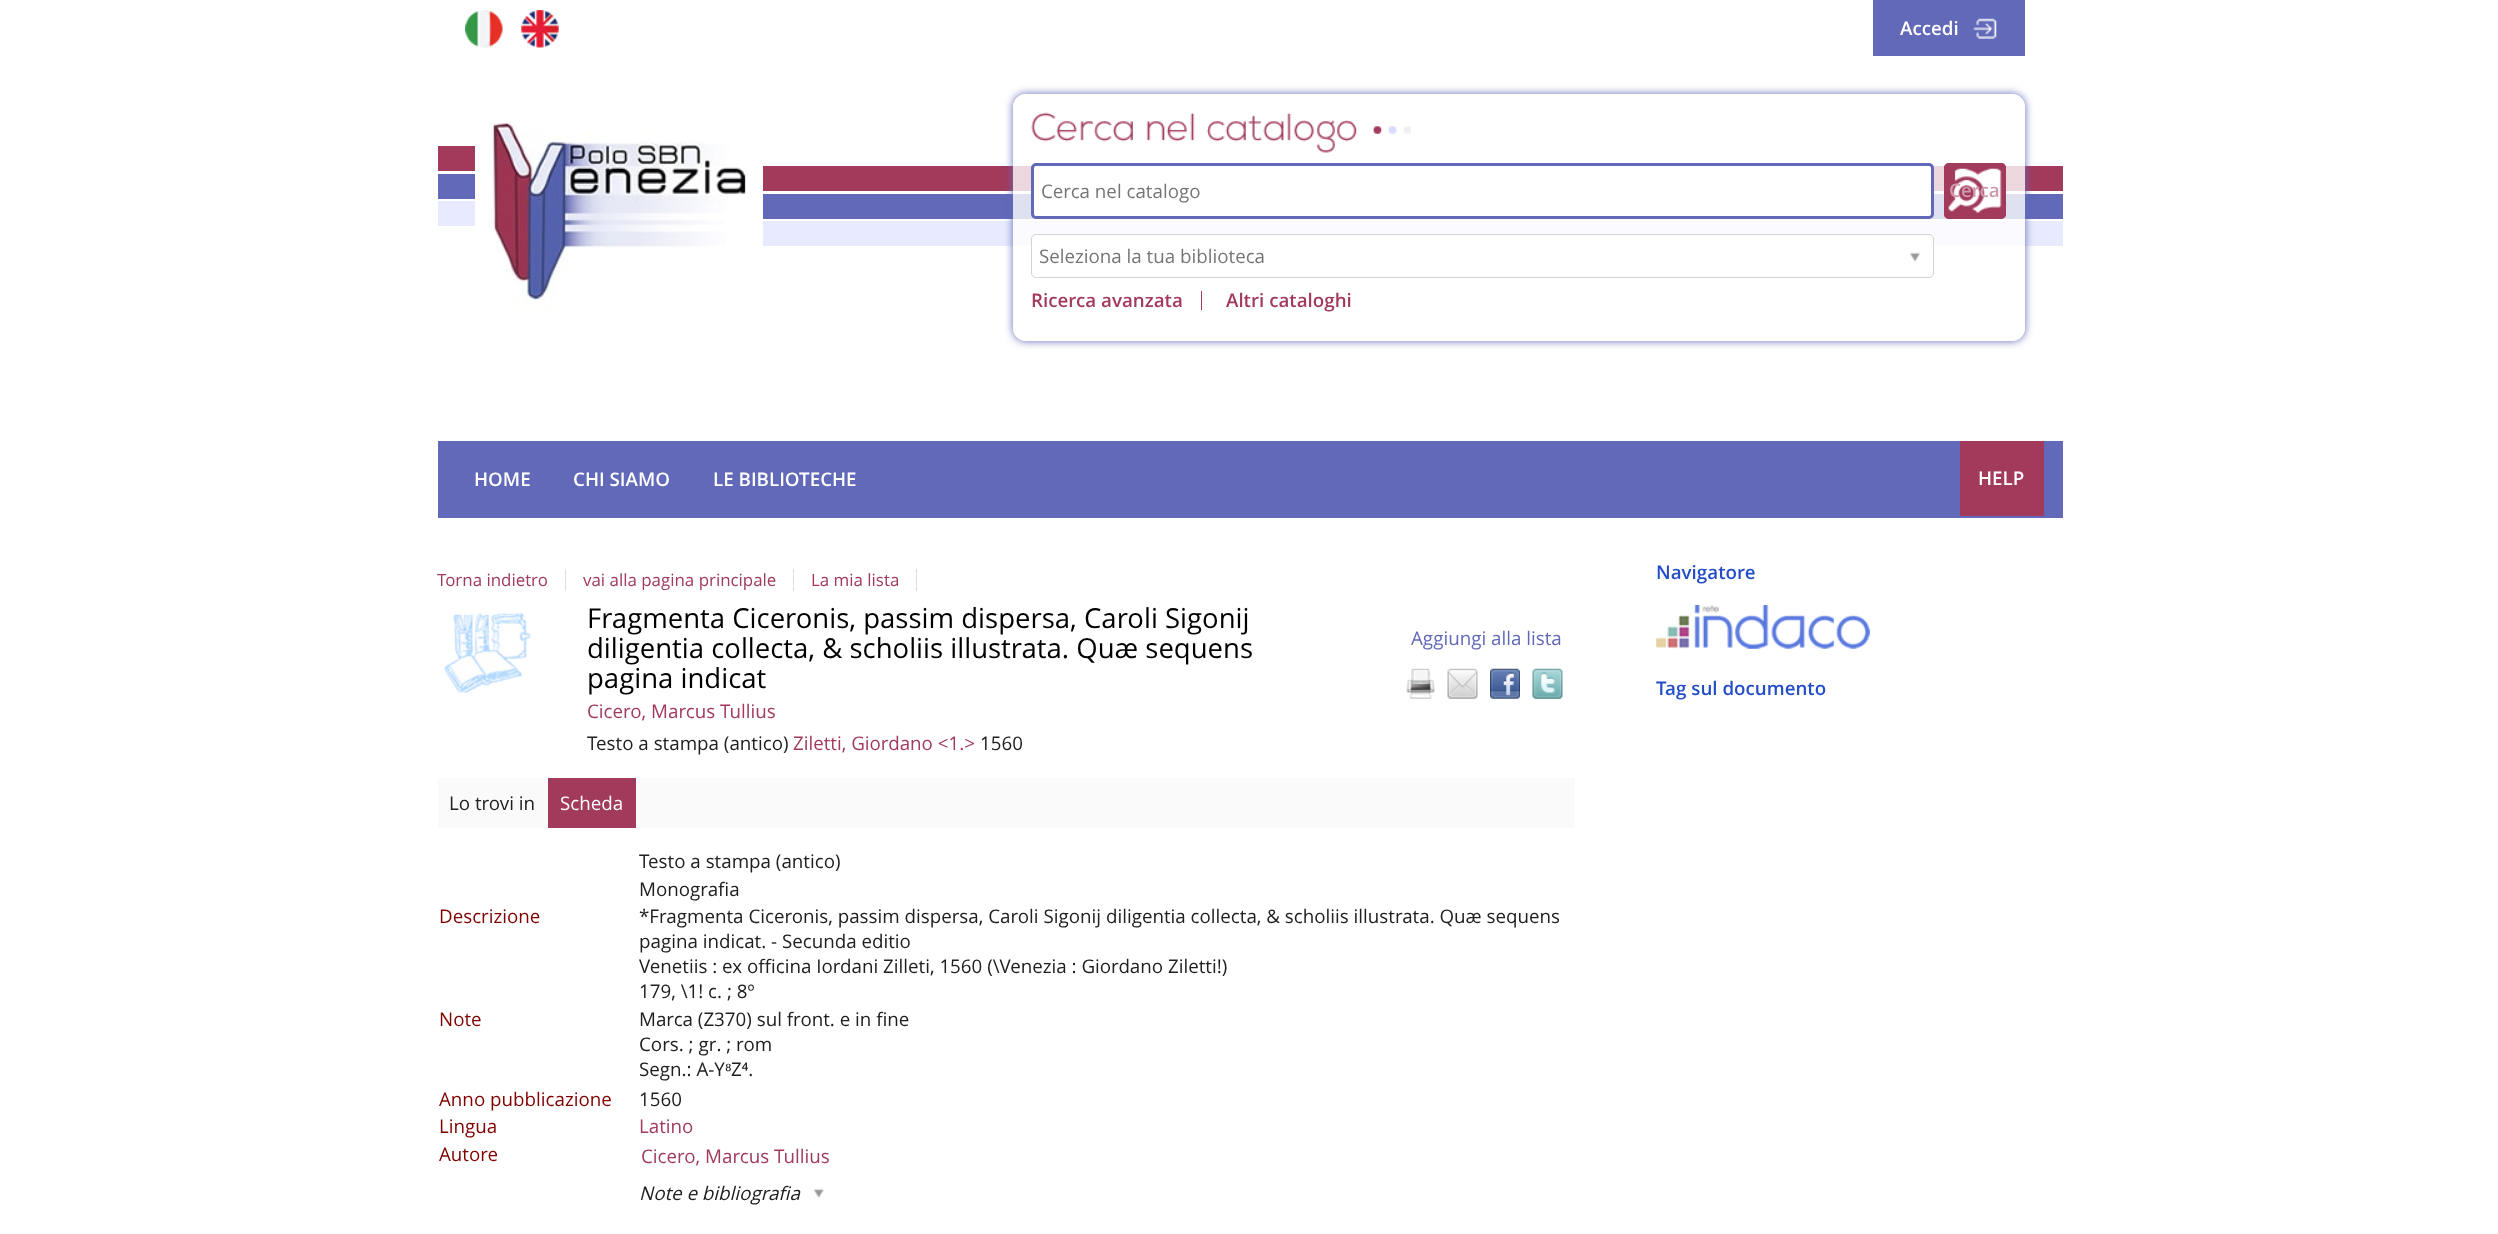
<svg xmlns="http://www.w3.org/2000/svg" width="2498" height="1234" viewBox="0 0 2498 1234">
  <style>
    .t1 { font: 600 18.75px Open Sans; fill: #fff; }
    .t2 { font: 18.75px Open Sans; fill: #757575; }
    .t3 { font: 600 18.75px Open Sans; fill: #cf9aab; }
    .t4 { font: 600 18.75px Open Sans; fill: #a23a5b; }
    .t5 { font: 16.9px Open Sans; fill: #a23a5b; }
    .t6 { font: 27.5px Open Sans; fill: #000; }
    .t7 { font: 18.75px Open Sans; fill: #6169b8; }
    .t8 { font: 18.75px Open Sans; fill: #a23a5b; }
    .t9 { font: 18.75px Open Sans; fill: #202020; }
    .t10 { font: 18.75px Open Sans; fill: #fff; }
    .t11 { font: 18.75px Open Sans; fill: #800000; }
    .t12 { font: 18.75px Liberation Serif; fill: #202020; }
    .t13 { font: italic 18.75px Open Sans; fill: #202020; }
    .t14 { font: 600 18.75px Open Sans; fill: #234dc8; }
  </style>
  <defs>
    <clipPath id="clip1"><path d="M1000 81H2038V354H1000ZM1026 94H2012C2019 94 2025 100 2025 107V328C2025 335 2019 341 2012 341H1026C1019 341 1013 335 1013 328V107C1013 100 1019 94 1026 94Z" clip-rule="evenodd"/></clipPath>
  </defs>
  <rect width="100%" height="100%" fill="#fff"/>
  <image x="465" y="10" width="38" height="38" href="images/1.png"/>
  <image x="521" y="10" width="38" height="38" href="images/2.png"/>
  <rect x="1873" y="0" width="152" height="56" fill="#6169b8"/>
  <image x="1973" y="18" width="24" height="21" href="images/3.png"/>
  <text x="1900" y="35" class="t1">Accedi</text>
  <image x="488" y="121" width="258" height="190" href="images/4.png"/>
  <rect x="438" y="146" width="37" height="25" fill="#a23a5b"/>
  <rect x="438" y="174" width="37" height="25" fill="#6169b8"/>
  <rect x="438" y="201" width="37" height="25" fill="#e8eaff"/>
  <rect x="763" y="166" width="1300" height="25" fill="#a23a5b"/>
  <rect x="763" y="194" width="1300" height="25" fill="#6169b8"/>
  <rect x="763" y="221" width="1300" height="25" fill="#e8eaff"/>
  <g clip-path="url(#clip1)">
    <rect x="1013" y="94" width="1012" height="247" rx="13" fill="#6169b8" filter="blur(4px)"/>
  </g>
  <rect x="1013" y="94" width="1012" height="247" rx="13" fill="#ffffffcc"/>
  <image x="1031" y="112" width="380" height="41" href="images/5.png"/>
  <rect x="1032.5" y="164.5" width="900" height="53" rx="3.5" fill="#fff" stroke="#6169b8" stroke-width="3"/>
  <text x="1041" y="198" class="t2">Cerca nel catalogo</text>
  <rect x="1944" y="163" width="62" height="56" rx="5" fill="#a23a5b"/>
  <image x="1948" y="168" width="54" height="45" href="images/6.png"/>
  <rect x="1945.5" y="164.5" width="59" height="53" rx="3.5" fill="none" stroke="#a23a5b" stroke-width="3"/>
  <text x="1949" y="197" class="t3">Cerca</text>
  <rect x="1031.5" y="234.5" width="902" height="43" rx="4.5" fill="#fff" stroke="#d3d3d3"/>
  <text x="1039" y="263" class="t2">Seleziona la tua biblioteca</text>
  <image x="1910" y="252" width="11" height="10" href="images/7.png"/>
  <rect x="1201" y="291" width="1" height="19" fill="#a23a5b"/>
  <text x="1031" y="307" class="t4">Ricerca avanzata</text>
  <text x="1226" y="307" class="t4">Altri cataloghi</text>
  <rect x="438" y="441" width="1625" height="77" fill="#6169b8"/>
  <text x="474" y="486" class="t1">HOME</text>
  <text x="573" y="486" class="t1">CHI SIAMO</text>
  <text x="713" y="486" class="t1">LE BIBLIOTECHE</text>
  <rect x="1960" y="441" width="84" height="75" fill="#a23a5b"/>
  <text x="1978" y="485" class="t1">HELP</text>
  <text x="437" y="586" class="t5">Torna indietro</text>
  <rect x="565" y="569" width="1" height="22" fill="#ddd"/>
  <text x="583" y="586" class="t5">vai alla pagina principale</text>
  <rect x="793" y="569" width="1" height="22" fill="#ddd"/>
  <text x="811" y="586" class="t5">La mia lista</text>
  <rect x="916" y="569" width="1" height="22" fill="#ddd"/>
  <image x="443" y="612" width="88" height="81" href="images/8.png"/>
  <text x="587" y="628" class="t6">Fragmenta Ciceronis, passim dispersa, Caroli Sigonij</text>
  <text x="587" y="658" class="t6">diligentia collecta, &amp; scholiis illustrata. Quæ sequens</text>
  <text x="587" y="688" class="t6">pagina indicat</text>
  <text x="1411" y="645" class="t7">Aggiungi alla lista</text>
  <image x="1406" y="668" width="29" height="31" href="images/9.png"/>
  <image x="1447" y="668" width="31" height="31" href="images/10.png"/>
  <image x="1490" y="668" width="30" height="31" href="images/11.png"/>
  <image x="1532" y="668" width="31" height="31" href="images/12.png"/>
  <text x="587" y="718" class="t8">Cicero, Marcus Tullius</text>
  <text x="587" y="750" class="t9">Testo a stampa (antico)</text>
  <text x="793" y="750" class="t8">Ziletti, Giordano &lt;1.&gt;</text>
  <text x="980" y="750" class="t9">1560</text>
  <rect x="438" y="778" width="1137" height="50" fill="#fafafa"/>
  <text x="449" y="810" class="t9">Lo trovi in</text>
  <rect x="548" y="778" width="88" height="50" fill="#a23a5b"/>
  <text x="560" y="810" class="t10">Scheda</text>
  <text x="639" y="868" class="t9">Testo a stampa (antico)</text>
  <text x="639" y="896" class="t9">Monografia</text>
  <text x="439" y="923" class="t11">Descrizione</text>
  <text x="639" y="923" class="t9">*Fragmenta Ciceronis, passim dispersa, Caroli Sigonij diligentia collecta, &amp; scholiis illustrata. Quæ sequens</text>
  <text x="639" y="948" class="t9">pagina indicat. - Secunda editio</text>
  <text x="639" y="973" class="t9">Venetiis : ex officina Iordani Zilleti, 1560 (\Venezia : Giordano Ziletti!)</text>
  <text x="639" y="998" class="t9">179, \1! c. ; 8º</text>
  <text x="439" y="1026" class="t11">Note</text>
  <text x="639" y="1026" class="t9">Marca (Z370) sul front. e in fine</text>
  <text x="639" y="1051" class="t9">Cors. ; gr. ; rom</text>
  <text x="639" y="1076" class="t9">Segn.: A-Y</text>
  <text x="725" y="1076" class="t12">⁸</text>
  <text x="731" y="1076" class="t9">Z⁴.</text>
  <text x="439" y="1106" class="t11">Anno pubblicazione</text>
  <text x="639" y="1106" class="t9">1560</text>
  <text x="439" y="1133" class="t11">Lingua</text>
  <text x="639" y="1133" class="t8">Latino</text>
  <text x="439" y="1161" class="t11">Autore</text>
  <text x="641" y="1163" class="t8">Cicero, Marcus Tullius</text>
  <image x="813" y="1188" width="11" height="10" href="images/13.png"/>
  <text x="639" y="1200" class="t13">Note e bibliografia</text>
  <text x="1656" y="579" class="t14">Navigatore</text>
  <image x="1656" y="605" width="214" height="44" href="images/14.png"/>
  <text x="1656" y="695" class="t14">Tag sul documento</text>
</svg>
